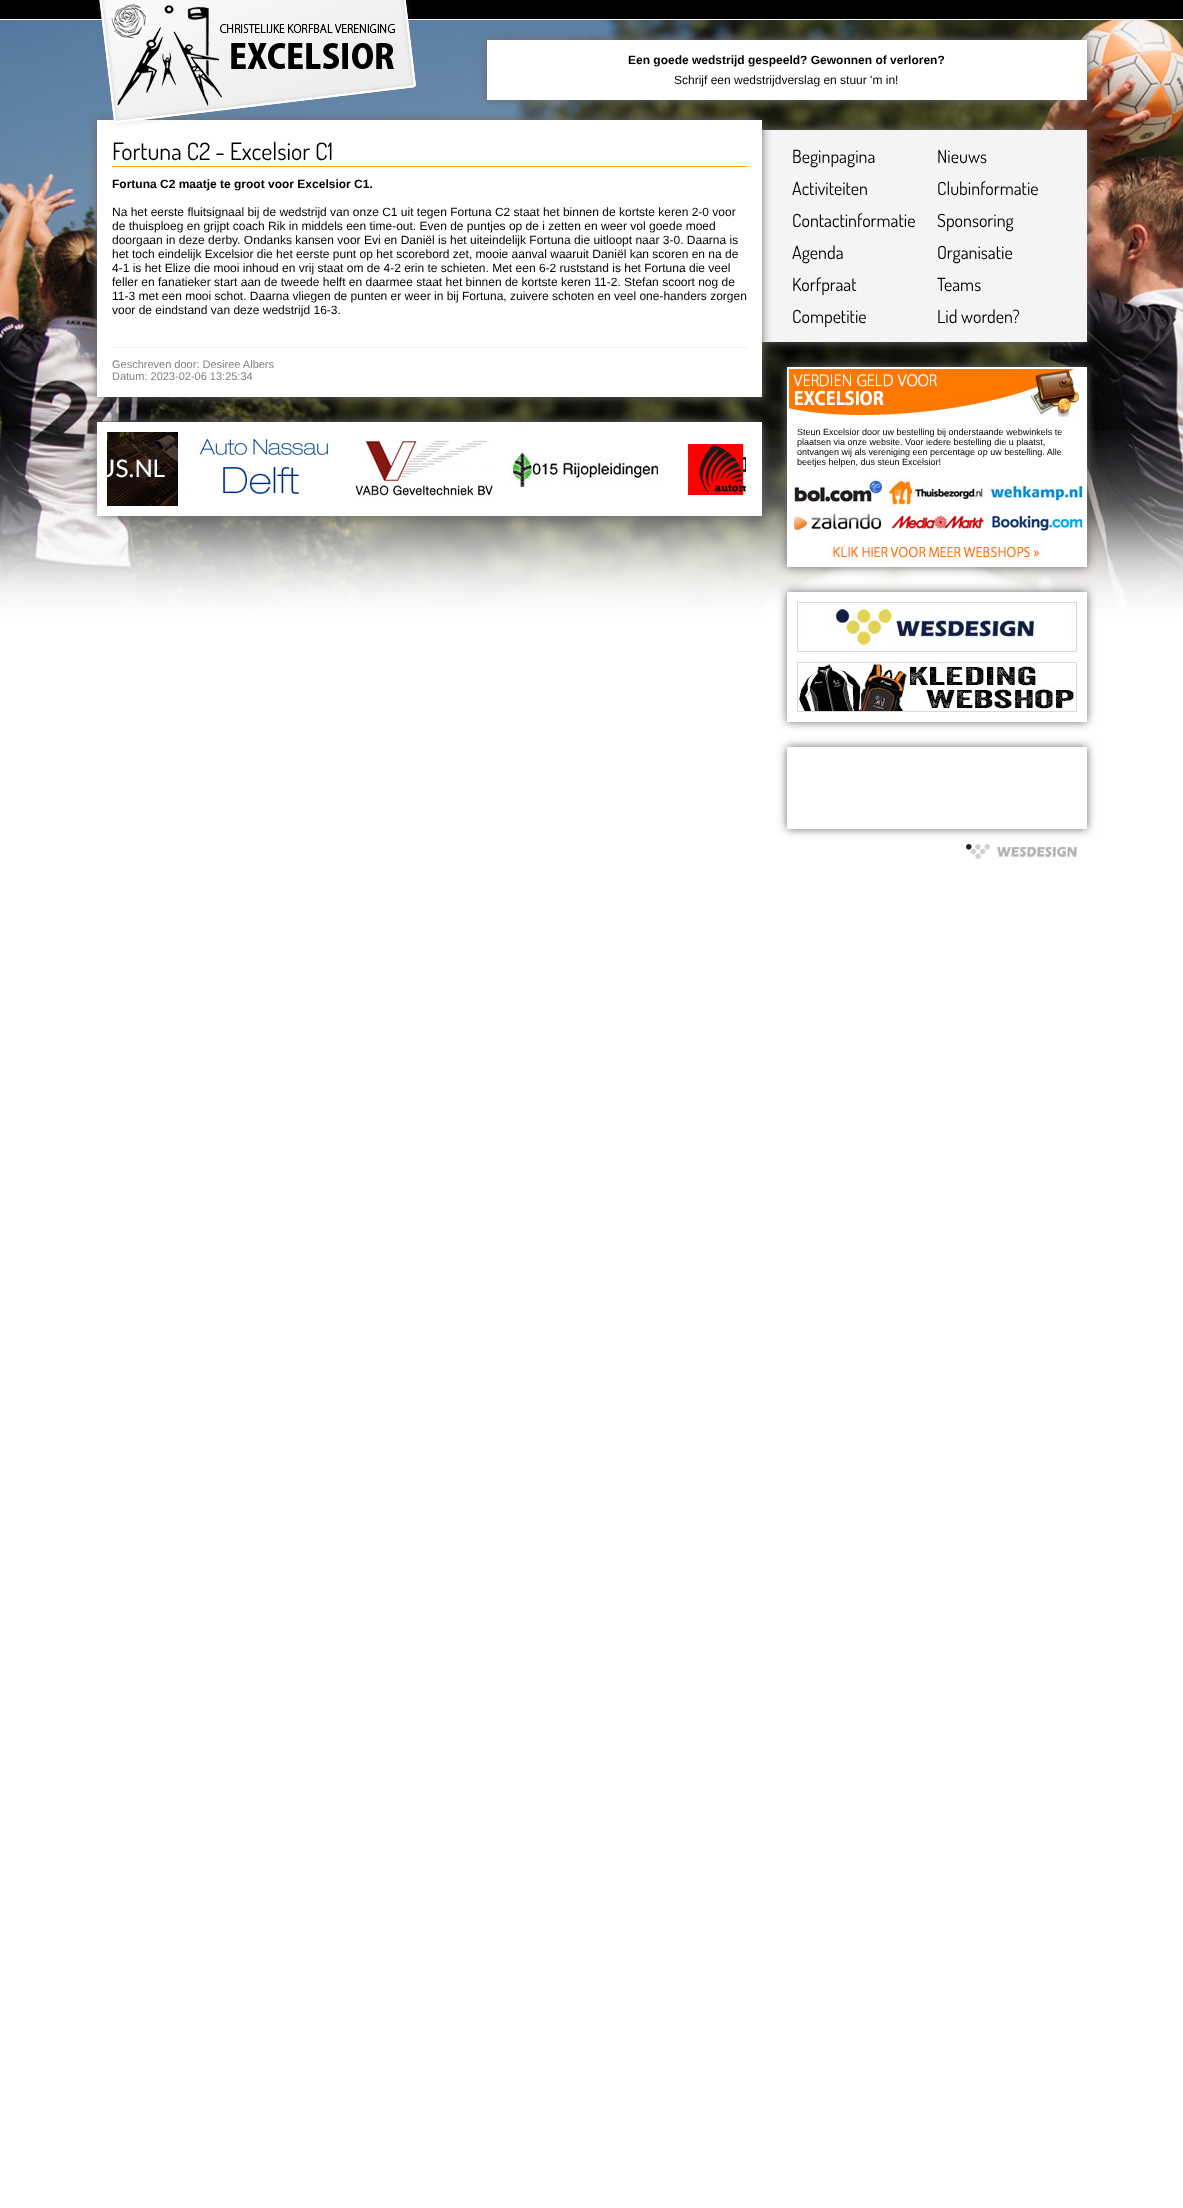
<svg xmlns="http://www.w3.org/2000/svg" width="1183" height="2208" viewBox="0 0 1183 2208">
  <style>
    .t1 { font: bold 12px Liberation Sans; fill: #000; }
    .t2 { font: 12px Liberation Sans; fill: #000; }
    .t3 { font: 24px Dosis; fill: #000; }
    .t4 { font: 11px Liberation Sans; fill: #808080; }
    .t5 { font: 18px Dosis; fill: #000; }
    .t6 { font: 9px Liberation Sans; fill: #000; }
  </style>
  <defs>
    <clipPath id="clip1"><path d="M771 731H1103V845H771ZM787 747H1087V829H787Z" clip-rule="evenodd"/></clipPath>
  </defs>
  <rect width="100%" height="100%" fill="#fff"/>
  <rect x="0" y="0" width="1183" height="19" fill="#000"/>
  <image x="0" y="20" width="1183" height="597" href="images/1.png"/>
  <rect x="762" y="130" width="325" height="212" fill="#6b6b6b" filter="blur(5px)"/>
  <rect x="762" y="130" width="325" height="212" fill="#f4f4f4"/>
  <rect x="97" y="120" width="665" height="277" fill="#6b6b6b" filter="blur(5px)"/>
  <rect x="97" y="120" width="665" height="277" fill="#fff"/>
  <image x="97" y="0" width="320" height="127" href="images/2.png"/>
  <rect x="487" y="40" width="600" height="60" fill="#6b6b6b" filter="blur(5px)"/>
  <rect x="487" y="40" width="600" height="60" fill="#fff"/>
  <text x="628" y="64" class="t1">Een goede wedstrijd gespeeld? Gewonnen of verloren?</text>
  <text x="674" y="84" class="t2">Schrijf een wedstrijdverslag en stuur 'm in!</text>
  <rect x="112" y="166" width="635" height="1" fill="#ffa500"/>
  <text x="112" y="160" class="t3">Fortuna C2 - Excelsior C1</text>
  <text x="112" y="188" class="t1">Fortuna C2 maatje te groot voor Excelsior C1.</text>
  <text x="112" y="216" class="t2">Na het eerste fluitsignaal bij de wedstrijd van onze C1 uit tegen Fortuna C2 staat het binnen de kortste keren 2-0 voor</text>
  <text x="112" y="230" class="t2">de thuisploeg en grijpt coach Rik in middels een time-out. Even de puntjes op de i zetten en weer vol goede moed</text>
  <text x="112" y="244" class="t2">doorgaan in deze derby. Ondanks kansen voor Evi en Daniël is het uiteindelijk Fortuna die uitloopt naar 3-0. Daarna is</text>
  <text x="112" y="258" class="t2">het toch eindelijk Excelsior die het eerste punt op het scorebord zet, mooie aanval waaruit Daniël kan scoren en na de</text>
  <text x="112" y="272" class="t2">4-1 is het Elize die mooi inhoud en vrij staat om de 4-2 erin te schieten. Met een 6-2 ruststand is het Fortuna die veel</text>
  <text x="112" y="286" class="t2">feller en fanatieker start aan de tweede helft en daarmee staat het binnen de kortste keren 11-2. Stefan scoort nog de</text>
  <text x="112" y="300" class="t2">11-3 met een mooi schot. Daarna vliegen de punten er weer in bij Fortuna, zuivere schoten en veel one-handers zorgen</text>
  <text x="112" y="314" class="t2">voor de eindstand van deze wedstrijd 16-3.</text>
  <rect x="112" y="347" width="635" height="1" fill="#f2eeea"/>
  <text x="112" y="368" class="t4">Geschreven door: Desiree Albers</text>
  <text x="112" y="380" class="t4">Datum: 2023-02-06 13:25:34</text>
  <image x="0" y="430" width="1183" height="240" href="images/19.png"/>
  <rect x="97" y="422" width="665" height="94" fill="#6b6b6b" filter="blur(5px)"/>
  <rect x="97" y="422" width="665" height="94" fill="#fff"/>
  <image x="107" y="432" width="71" height="74" href="images/3.png"/>
  <image x="196" y="432" width="136" height="64" href="images/4.png"/>
  <image x="352" y="440" width="141" height="57" href="images/5.png"/>
  <image x="510" y="448" width="151" height="40" href="images/6.png"/>
  <image x="687" y="440" width="59" height="56" href="images/7.png"/>
  <text x="792" y="163" class="t5">Beginpagina</text>
  <text x="937" y="163" class="t5">Nieuws</text>
  <text x="792" y="195" class="t5">Activiteiten</text>
  <text x="937" y="195" class="t5">Clubinformatie</text>
  <text x="792" y="227" class="t5">Contactinformatie</text>
  <text x="937" y="227" class="t5">Sponsoring</text>
  <text x="792" y="259" class="t5">Agenda</text>
  <text x="937" y="259" class="t5">Organisatie</text>
  <text x="792" y="291" class="t5">Korfpraat</text>
  <text x="937" y="291" class="t5">Teams</text>
  <text x="792" y="323" class="t5">Competitie</text>
  <text x="937" y="323" class="t5">Lid worden?</text>
  <rect x="787" y="367" width="300" height="200" fill="#6b6b6b" filter="blur(5px)"/>
  <rect x="787" y="367" width="300" height="200" fill="#fff"/>
  <image x="787" y="367" width="296" height="50" href="images/8.png"/>
  <text x="797" y="435" class="t6">Steun Excelsior door uw bestelling bij onderstaande webwinkels te</text>
  <text x="797" y="445" class="t6">plaatsen via onze website. Voor iedere bestelling die u plaatst,</text>
  <text x="797" y="455" class="t6">ontvangen wij als vereniging een percentage op uw bestelling. Alle</text>
  <text x="797" y="465" class="t6">beetjes helpen, dus steun Excelsior!</text>
  <image x="794" y="477" width="89" height="30" href="images/9.png"/>
  <image x="887" y="477" width="96" height="30" href="images/10.png"/>
  <image x="987" y="485" width="96" height="16" href="images/11.png"/>
  <image x="787" y="509" width="96" height="22" href="images/12.png"/>
  <image x="891" y="515" width="93" height="16" href="images/13.png"/>
  <image x="992" y="515" width="91" height="16" href="images/14.png"/>
  <image x="827" y="545" width="216" height="16" href="images/15.png"/>
  <rect x="787" y="592" width="300" height="130" fill="#6b6b6b" filter="blur(5px)"/>
  <rect x="787" y="592" width="300" height="130" fill="#fff"/>
  <image x="797" y="602" width="280" height="50" href="images/16.png"/>
  <image x="797" y="662" width="280" height="50" href="images/17.png"/>
  <g clip-path="url(#clip1)">
    <rect x="787" y="747" width="300" height="82" fill="#6b6b6b" filter="blur(5px)"/>
  </g>
  <image x="966" y="844" width="111" height="15" href="images/18.png"/>
</svg>
